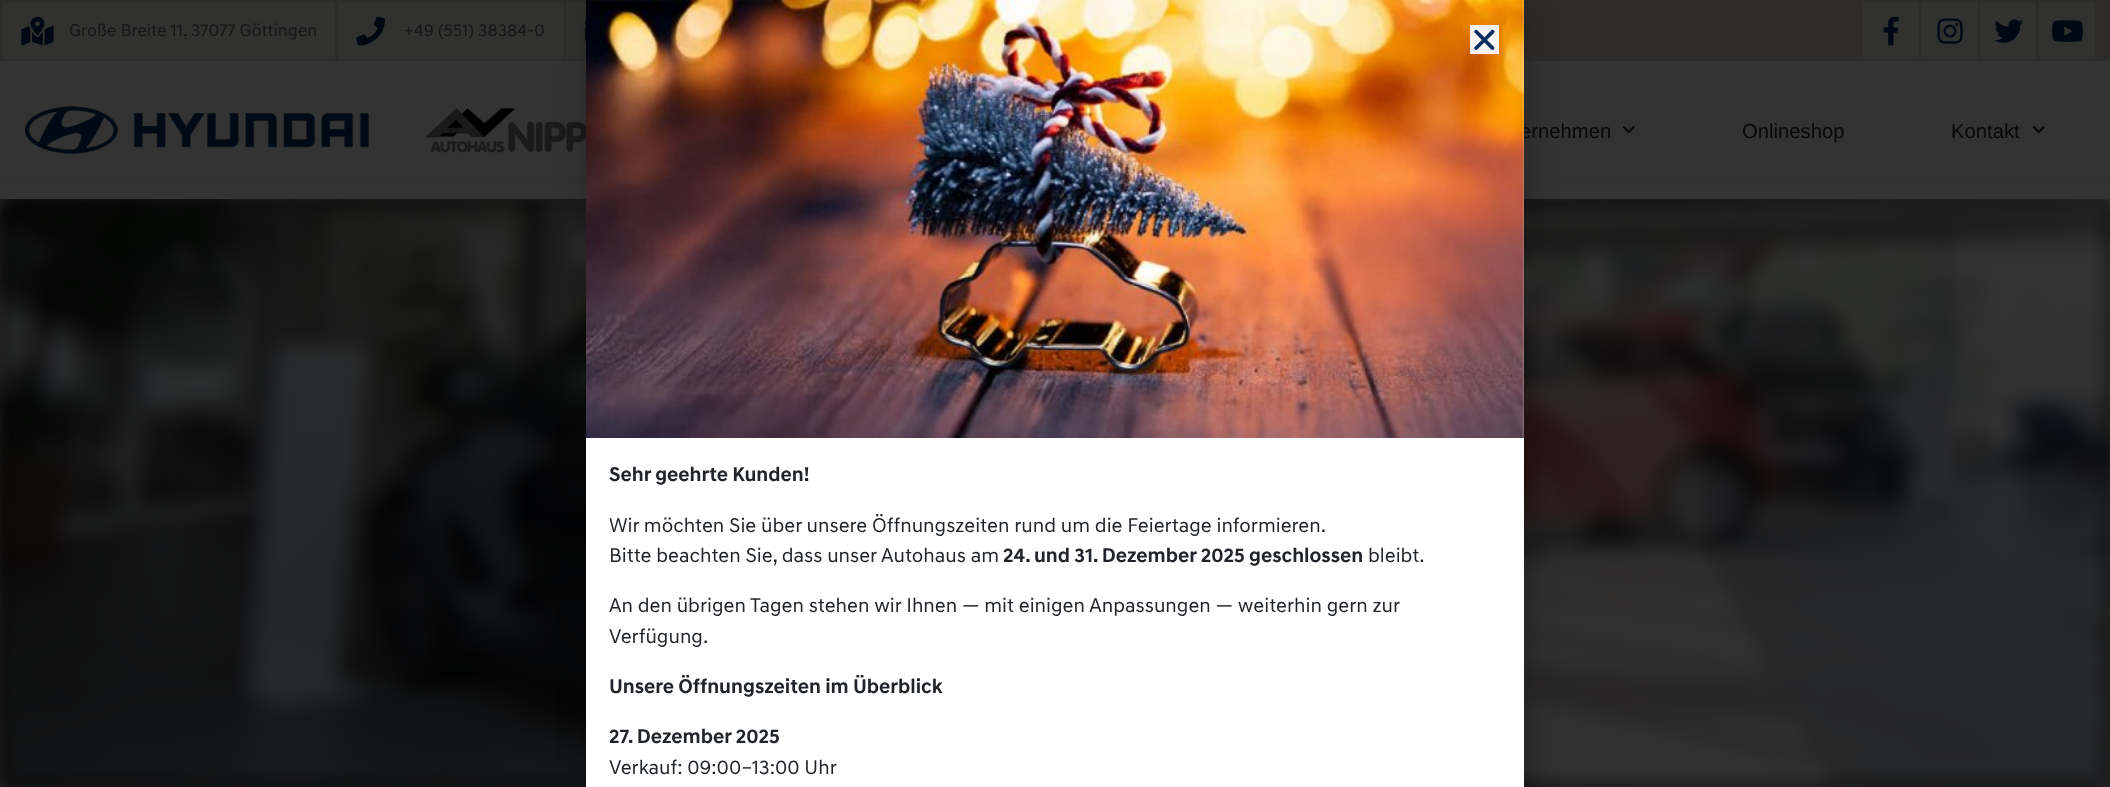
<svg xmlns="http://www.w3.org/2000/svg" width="2110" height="787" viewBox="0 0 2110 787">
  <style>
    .t1 { font: 17.5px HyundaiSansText; fill: #161616; }
    .t2 { font: 20.25px Liberation Sans; fill: #080809; }
    .t3 { font: bold 20.25px HyundaiSansText; fill: #212529; }
    .t4 { font: 20.25px HyundaiSansText; fill: #212529; }
  </style>
  <rect width="100%" height="100%" fill="#333"/>
  <rect x="0" y="0" width="2110" height="61" fill="#2e2c2a"/>
  <rect x="3" y="3" width="332" height="56" fill="#313130"/>
  <image x="21" y="16" width="33" height="30" href="images/1.png"/>
  <text x="69" y="36" class="t1">Große Breite 11, 37077 Göttingen</text>
  <rect x="338" y="3" width="226" height="56" fill="#313130"/>
  <image x="356" y="16" width="29" height="30" href="images/2.png"/>
  <text x="404" y="36" class="t1">+49 (551) 38384-0</text>
  <rect x="566" y="3" width="20" height="56" fill="#313130"/>
  <image x="585" y="21" width="1" height="21" href="images/3.png"/>
  <rect x="1863" y="3" width="56" height="56" fill="#313130"/>
  <image x="1883" y="16" width="16" height="30" href="images/4.png"/>
  <rect x="1921" y="3" width="57" height="56" fill="#313130"/>
  <image x="1937" y="18" width="26" height="26" href="images/5.png"/>
  <rect x="1980" y="3" width="56" height="56" fill="#313130"/>
  <image x="1994" y="19" width="29" height="24" href="images/6.png"/>
  <rect x="2039" y="3" width="56" height="56" fill="#313130"/>
  <image x="2052" y="20" width="31" height="22" href="images/7.png"/>
  <rect x="0" y="199" width="2110" height="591" fill="#000" filter="blur(10px)"/>
  <rect x="0" y="183" width="2110" height="16" fill="#333"/>
  <image x="25" y="106" width="561" height="48" href="images/8.png"/>
  <text x="1520" y="138" class="t2">ernehmen</text>
  <image x="1622" y="126" width="13" height="8" href="images/9.png"/>
  <text x="1742" y="138" class="t2">Onlineshop</text>
  <text x="1951" y="138" class="t2">Kontakt</text>
  <image x="2032" y="126" width="13" height="8" href="images/9.png"/>
  <image x="0" y="199" width="2110" height="588" href="images/10.png"/>
  <rect x="585" y="6" width="945" height="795" fill="#00000033" filter="blur(14.5px)"/>
  <rect x="586" y="0" width="938" height="787" fill="#fff"/>
  <image x="586" y="0" width="938" height="438" href="images/12.png"/>
  <rect x="1470" y="25" width="29" height="29" fill="#f6f3f2"/>
  <image x="1474" y="29" width="21" height="21" href="images/11.png"/>
  <text x="609" y="481" class="t3">Sehr geehrte Kunden!</text>
  <text x="609" y="532" class="t4">Wir möchten Sie über unsere Öffnungszeiten rund um die Feiertage informieren.</text>
  <text x="609" y="562" class="t4">Bitte beachten Sie, dass unser Autohaus am</text>
  <text x="1003" y="562" class="t3">24. und 31. Dezember 2025 geschlossen</text>
  <text x="1368" y="562" class="t4">bleibt.</text>
  <text x="609" y="612" class="t4">An den übrigen Tagen stehen wir Ihnen — mit einigen Anpassungen — weiterhin gern zur</text>
  <text x="609" y="643" class="t4">Verfügung.</text>
  <text x="609" y="693" class="t3">Unsere Öffnungszeiten im Überblick</text>
  <text x="609" y="743" class="t3">27. Dezember 2025</text>
  <text x="609" y="774" class="t4">Verkauf: 09:00–13:00 Uhr</text>
</svg>
